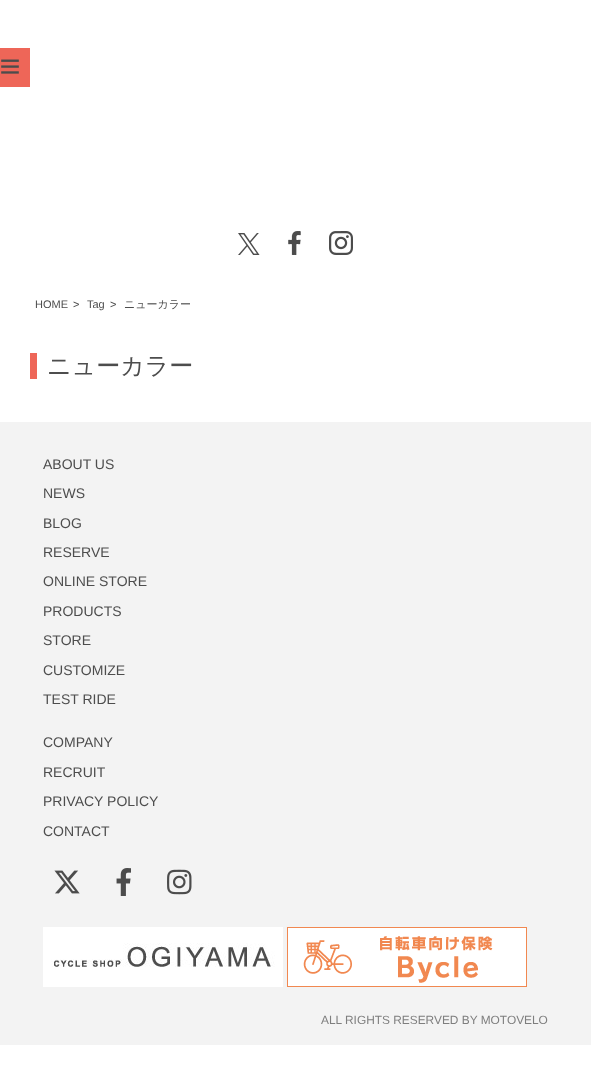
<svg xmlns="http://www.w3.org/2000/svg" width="591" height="1065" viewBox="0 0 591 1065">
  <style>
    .t1 { font: 11px Liberation Sans; fill: #4d4d4d; }
    .t2 { font: 500 11px WenQuanYi Zen Hei; fill: #4d4d4d; }
    .t3 { font: 500 24px WenQuanYi Zen Hei; fill: #4d4d4d; }
    .t4 { font: 14px Liberation Sans; fill: #4d4d4d; }
    .t5 { font: 11.9px Liberation Sans; fill: #7e7e7e; }
  </style>
  <rect width="100%" height="100%" fill="#fff"/>
  <rect x="0" y="48" width="30" height="39" fill="#ee6658"/>
  <image x="1" y="59" width="18" height="15" href="images/1.png"/>
  <image x="238" y="233" width="22" height="22" href="images/2.png"/>
  <image x="288" y="231" width="13" height="24" href="images/3.png"/>
  <image x="329" y="231" width="24" height="24" href="images/4.png"/>
  <text x="35" y="308" class="t1">HOME</text>
  <text x="73" y="308" class="t1">&gt;</text>
  <text x="87" y="308" class="t1">Tag</text>
  <text x="110" y="308" class="t1">&gt;</text>
  <text x="124" y="308" class="t2">ニューカラー</text>
  <rect x="30" y="353" width="7" height="26" fill="#ee6658"/>
  <text x="47" y="374" class="t3">ニューカラー</text>
  <rect x="0" y="422" width="591" height="623" fill="#f3f3f3"/>
  <text x="43" y="469" class="t4">ABOUT US</text>
  <text x="43" y="498" class="t4">NEWS</text>
  <text x="43" y="528" class="t4">BLOG</text>
  <text x="43" y="557" class="t4">RESERVE</text>
  <text x="43" y="586" class="t4">ONLINE STORE</text>
  <text x="43" y="616" class="t4">PRODUCTS</text>
  <text x="43" y="645" class="t4">STORE</text>
  <text x="43" y="675" class="t4">CUSTOMIZE</text>
  <text x="43" y="704" class="t4">TEST RIDE</text>
  <text x="43" y="747" class="t4">COMPANY</text>
  <text x="43" y="777" class="t4">RECRUIT</text>
  <text x="43" y="806" class="t4">PRIVACY POLICY</text>
  <text x="43" y="836" class="t4">CONTACT</text>
  <image x="54" y="870" width="26" height="24" href="images/5.png"/>
  <image x="116" y="868" width="15" height="28" href="images/6.png"/>
  <image x="167" y="869" width="25" height="26" href="images/7.png"/>
  <image x="43" y="927" width="240" height="60" href="images/8.png"/>
  <image x="287" y="927" width="240" height="60" href="images/9.png"/>
  <text x="321" y="1024" class="t5">ALL RIGHTS RESERVED BY MOTOVELO</text>
</svg>
